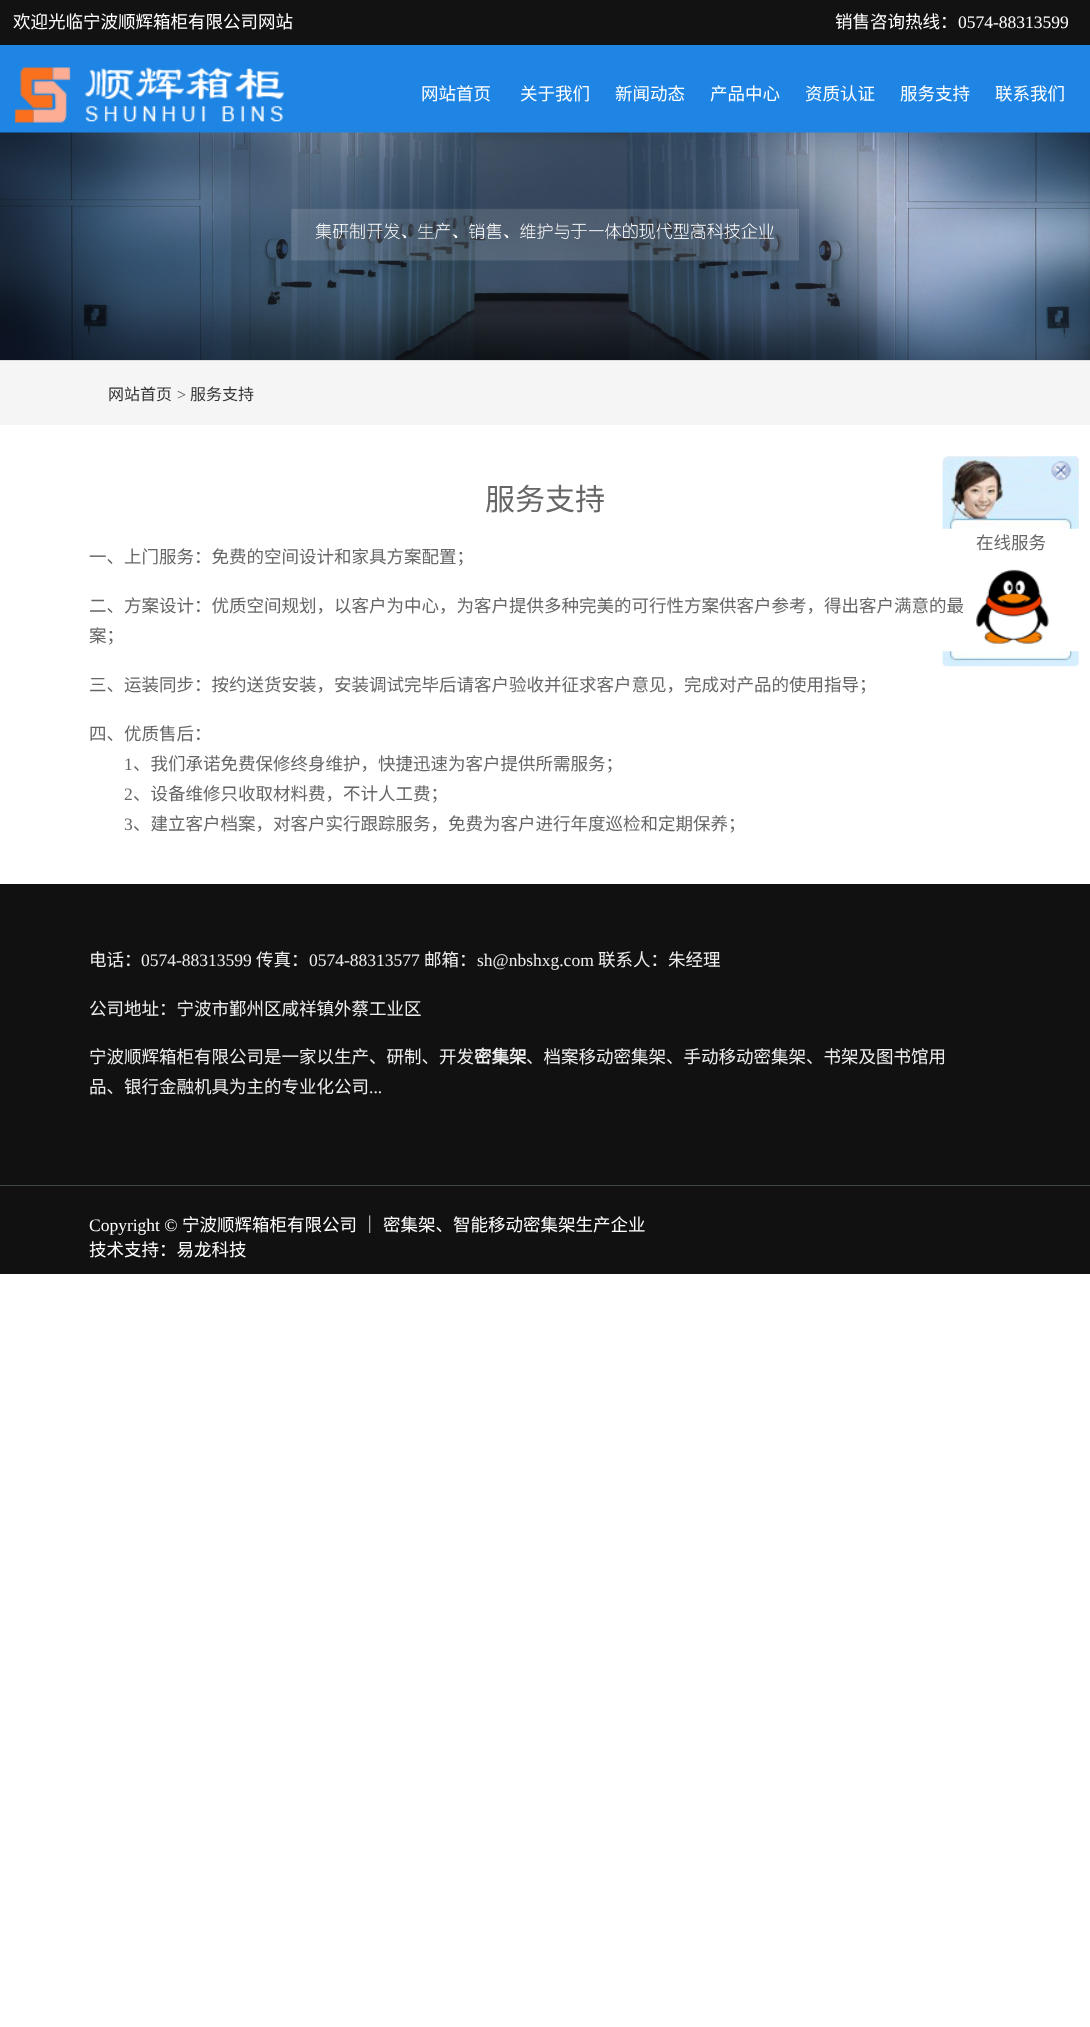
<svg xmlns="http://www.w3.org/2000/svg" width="1090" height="2027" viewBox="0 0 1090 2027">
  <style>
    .t1 { font: 17.5px Noto Sans CJK SC; fill: #fff; }
    .t2 { font: 17.5px Liberation Serif; fill: #fff; }
    .t3 { font: 16px Noto Sans CJK SC; fill: #333; }
    .t4 { font: 16px Liberation Serif; fill: #555; }
    .t5 { font: 30px Noto Sans CJK SC; fill: #666; }
    .t6 { font: 17.5px Noto Sans CJK SC; fill: #666; }
    .t7 { font: 17.5px Liberation Serif; fill: #666; }
    .t8 { font: 17.5px Noto Sans CJK SC; fill: #eee; }
    .t9 { font: 17.5px Liberation Serif; fill: #eee; }
    .t10 { font: bold 17.5px Noto Sans CJK SC; fill: #eee; }
  </style>
  <rect width="100%" height="100%" fill="#fff"/>
  <rect x="0" y="0" width="1090" height="45" fill="#121212"/>
  <text x="13" y="28" class="t1">欢迎光临宁波顺辉箱柜有限公司网站</text>
  <text x="835" y="28" class="t1">销售咨询热线：</text>
  <text x="958" y="28" class="t2">0574-88313599</text>
  <rect x="0" y="45" width="1090" height="88" fill="#1e85e4"/>
  <image x="14" y="67" width="270" height="56" href="images/1.png"/>
  <text x="421" y="100" class="t1">网站首页</text>
  <text x="520" y="100" class="t1">关于我们</text>
  <text x="615" y="100" class="t1">新闻动态</text>
  <text x="710" y="100" class="t1">产品中心</text>
  <text x="805" y="100" class="t1">资质认证</text>
  <text x="900" y="100" class="t1">服务支持</text>
  <text x="995" y="100" class="t1">联系我们</text>
  <image x="0" y="132" width="1090" height="228" href="images/2.png"/>
  <rect x="0" y="361" width="1090" height="64" fill="#f5f5f5"/>
  <rect x="0" y="360" width="1090" height="1" fill="#ddd"/>
  <text x="108" y="400" class="t3">网站首页</text>
  <text x="177" y="400" class="t4">&gt;</text>
  <text x="190" y="400" class="t3">服务支持</text>
  <text x="485" y="510" class="t5">服务支持</text>
  <text x="89" y="563" class="t6">一、上门服务：免费的空间设计和家具方案配置；</text>
  <text x="89" y="612" class="t6">二、方案设计：优质空间规划，以客户为中心，为客户提供多种完美的可行性方案供客户参考，得出客户满意的最</text>
  <text x="89" y="642" class="t6">案；</text>
  <text x="89" y="691" class="t6">三、运装同步：按约送货安装，安装调试完毕后请客户验收并征求客户意见，完成对产品的使用指导；</text>
  <text x="89" y="740" class="t6">四、优质售后：</text>
  <text x="124" y="770" class="t7">1</text>
  <text x="133" y="770" class="t6">、我们承诺免费保修终身维护，快捷迅速为客户提供所需服务；</text>
  <text x="124" y="800" class="t7">2</text>
  <text x="133" y="800" class="t6">、设备维修只收取材料费，不计人工费；</text>
  <text x="124" y="830" class="t7">3</text>
  <text x="133" y="830" class="t6">、建立客户档案，对客户实行跟踪服务，免费为客户进行年度巡检和定期保养；</text>
  <image x="942" y="456" width="137" height="73" href="images/3.png"/>
  <text x="976" y="549" class="t6">在线服务</text>
  <image x="971" y="569" width="78" height="75" href="images/4.png"/>
  <image x="942" y="651" width="137" height="16" href="images/5.png"/>
  <rect x="0" y="884" width="1090" height="301" fill="#111"/>
  <text x="89" y="966" class="t8">电话：</text>
  <text x="141" y="966" class="t9">0574-88313599</text>
  <text x="256" y="966" class="t8">传真：</text>
  <text x="309" y="966" class="t9">0574-88313577</text>
  <text x="424" y="966" class="t8">邮箱：</text>
  <text x="477" y="966" class="t9">sh@nbshxg.com</text>
  <text x="598" y="966" class="t8">联系人：朱经理</text>
  <text x="89" y="1015" class="t8">公司地址：宁波市鄞州区咸祥镇外蔡工业区</text>
  <text x="89" y="1063" class="t8">宁波顺辉箱柜有限公司是一家以生产、研制、开发</text>
  <text x="474" y="1063" class="t10">密集架</text>
  <text x="526" y="1063" class="t8">、档案移动密集架、手动移动密集架、书架及图书馆用</text>
  <text x="89" y="1093" class="t8">品、银行金融机具为主的专业化公司</text>
  <text x="369" y="1093" class="t9">...</text>
  <rect x="0" y="1186" width="1090" height="88" fill="#111"/>
  <rect x="0" y="1185" width="1090" height="1" fill="#3e4549"/>
  <text x="89" y="1231" class="t2">Copyright ©</text>
  <text x="182" y="1231" class="t1">宁波顺辉箱柜有限公司</text>
  <text x="361" y="1231" class="t1">｜</text>
  <text x="383" y="1231" class="t1">密集架、智能移动密集架生产企业</text>
  <text x="89" y="1256" class="t1">技术支持：易龙科技</text>
</svg>
